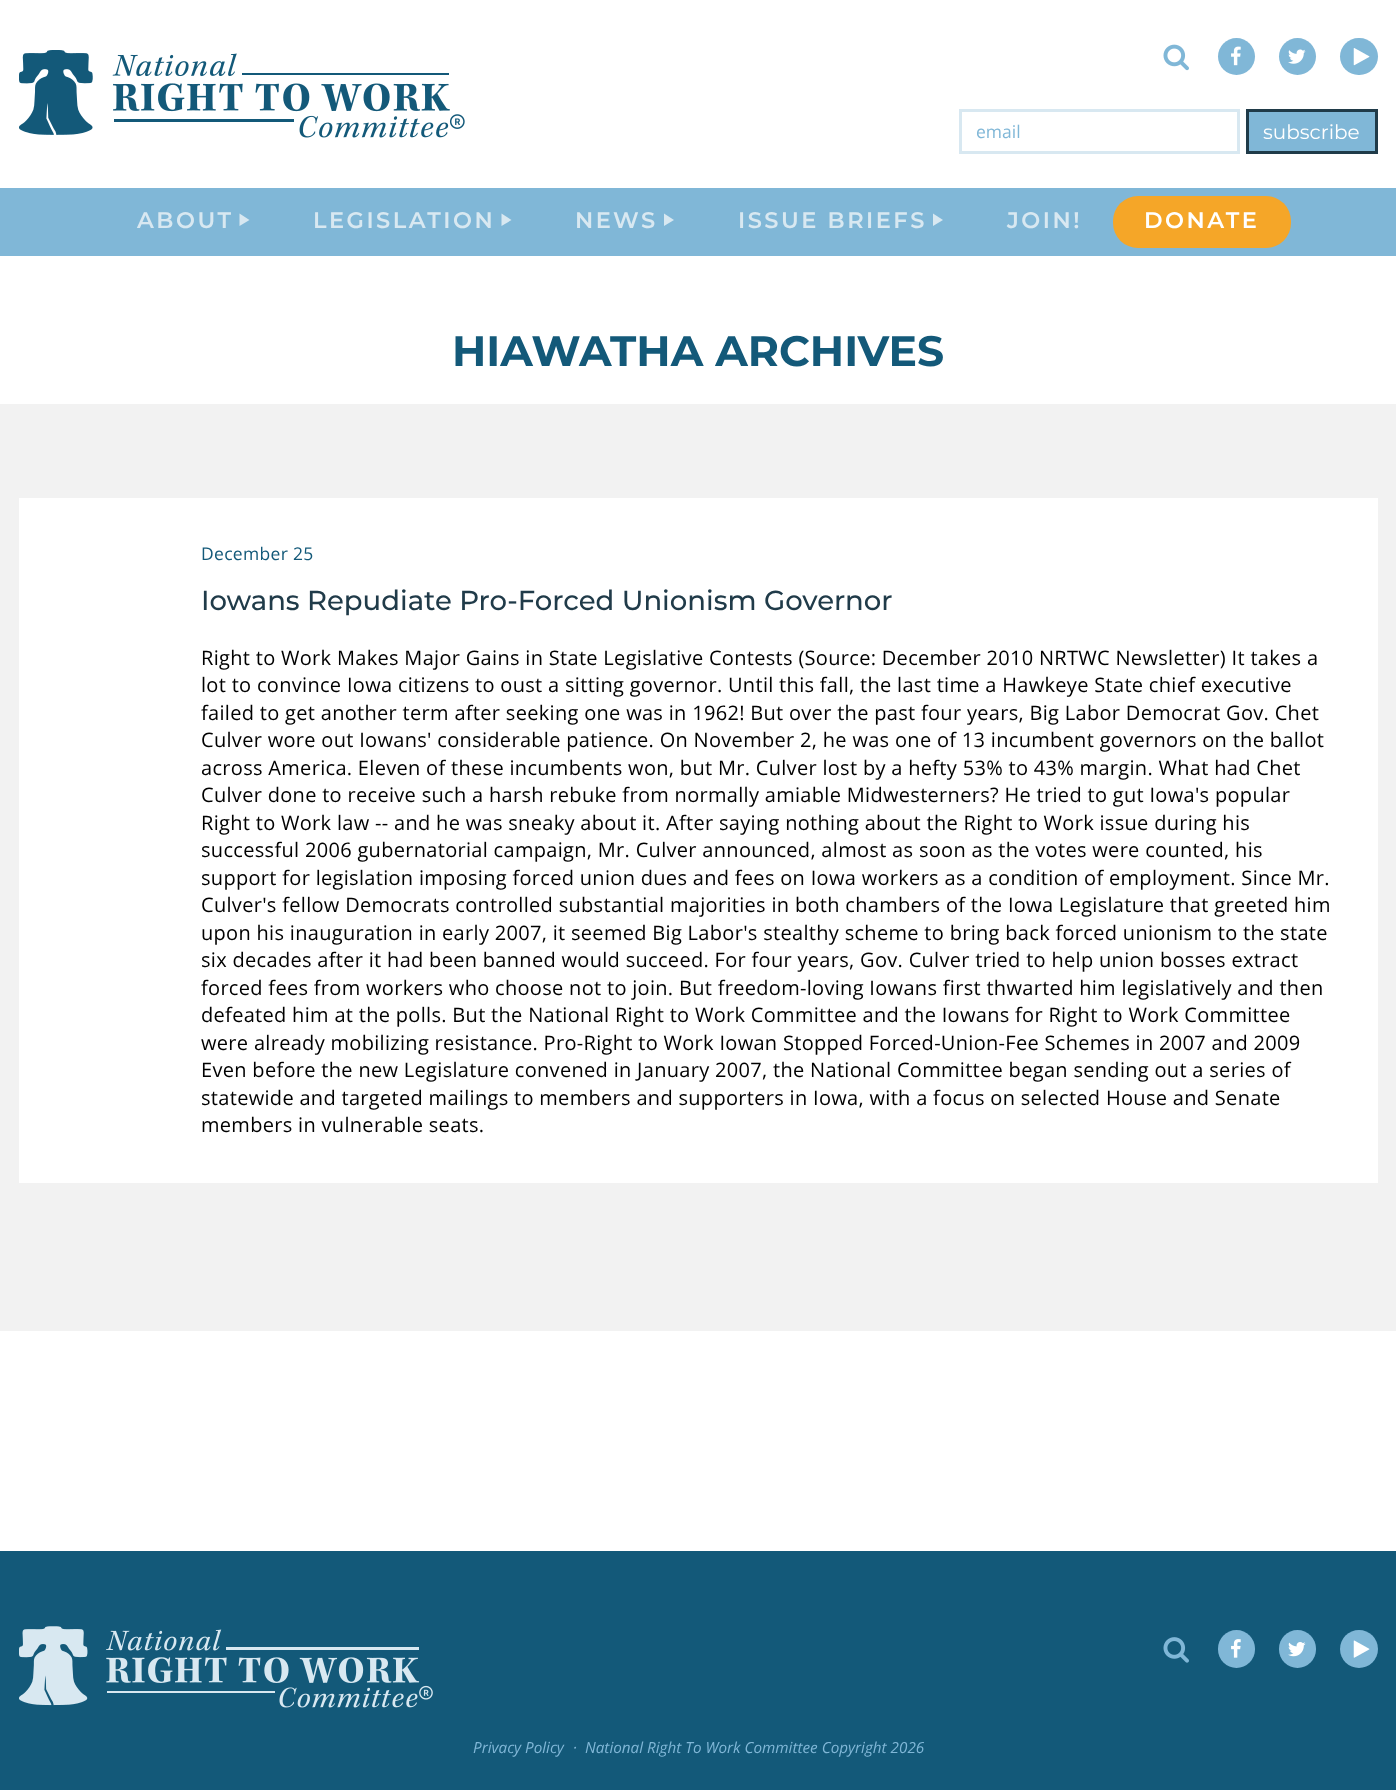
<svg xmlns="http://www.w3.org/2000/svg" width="1396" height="1790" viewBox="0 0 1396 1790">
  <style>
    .t1 { font: 17.5px Open Sans; fill: #80b7d7; }
    .t2 { font: 20px Montserrat; fill: #fff; }
    .t3 { font: 600 22.5px Montserrat; letter-spacing: 2.5px; fill: #d8e8f1; }
    .t4 { font: 600 22.5px Montserrat; letter-spacing: 2.5px; fill: #fff; }
    .t5 { font: bold 42.5px Montserrat; fill: #135979; }
    .t6 { font: 17.5px Open Sans; letter-spacing: 0.31px; fill: #135979; }
    .t7 { font: 500 27.5px Montserrat; fill: #203b49; }
    .t8 { font: 20px Open Sans; letter-spacing: 0.31px; fill: #000; }
    .t9 { font: italic 15.25px Open Sans; fill: #80b7d7; }
  </style>
  <rect width="100%" height="100%" fill="#fff"/>
  <image x="19" y="50" width="446" height="88" href="images/1.png"/>
  <image x="1163" y="44" width="26" height="27" href="images/2.png"/>
  <circle cx="1236.5" cy="56.5" r="18.5" fill="#80b7d7"/>
  <image x="1231" y="46" width="10" height="20" href="images/3.png"/>
  <circle cx="1297.5" cy="56.5" r="18.5" fill="#80b7d7"/>
  <image x="1288" y="49" width="18" height="15" href="images/4.png"/>
  <rect x="1340" y="38" width="38" height="37" rx="18.5" fill="#80b7d7"/>
  <image x="1353" y="48" width="17" height="18" href="images/5.png"/>
  <rect x="960.5" y="110.5" width="278" height="42" fill="none" stroke="#d8e8f1" stroke-width="3"/>
  <text x="976" y="138" class="t1">email</text>
  <rect x="1247.5" y="110.5" width="129" height="42" fill="#80b7d7" stroke="#203b49" stroke-width="3"/>
  <text x="1263" y="139" class="t2">subscribe</text>
  <rect x="0" y="188" width="1396" height="68" fill="#80b7d7"/>
  <text x="137" y="228" class="t3">ABOUT</text>
  <path d="M239.5 226V213.5L249.5 220Z" fill="#d8e8f1"/>
  <text x="313" y="228" class="t3">LEGISLATION</text>
  <path d="M501.5 226V213.5L511.5 220Z" fill="#d8e8f1"/>
  <text x="575" y="228" class="t3">NEWS</text>
  <path d="M664 226V213.5L674 220Z" fill="#d8e8f1"/>
  <text x="738" y="228" class="t3">ISSUE BRIEFS</text>
  <path d="M933 226V213.5L943 220Z" fill="#d8e8f1"/>
  <text x="1007" y="228" class="t3">JOIN!</text>
  <rect x="1113" y="196" width="178" height="52" rx="25" fill="#f5a628"/>
  <text x="1144" y="228" class="t4">DONATE</text>
  <text x="452" y="366" class="t5">HIAWATHA ARCHIVES</text>
  <rect x="0" y="404" width="1396" height="927" fill="#f2f2f2"/>
  <rect x="19" y="498" width="1359" height="685" fill="#fff"/>
  <text x="201" y="560" class="t6">December 25</text>
  <text x="201" y="610" class="t7">Iowans Repudiate Pro-Forced Unionism Governor</text>
  <text x="201" y="665" class="t8">Right to Work Makes Major Gains in State Legislative Contests (Source: December 2010 NRTWC Newsletter) It takes a</text>
  <text x="201" y="692" class="t8">lot to convince Iowa citizens to oust a sitting governor. Until this fall, the last time a Hawkeye State chief executive</text>
  <text x="201" y="720" class="t8">failed to get another term after seeking one was in 1962! But over the past four years, Big Labor Democrat Gov. Chet</text>
  <text x="201" y="747" class="t8">Culver wore out Iowans' considerable patience. On November 2, he was one of 13 incumbent governors on the ballot</text>
  <text x="201" y="775" class="t8">across America. Eleven of these incumbents won, but Mr. Culver lost by a hefty 53% to 43% margin. What had Chet</text>
  <text x="201" y="802" class="t8">Culver done to receive such a harsh rebuke from normally amiable Midwesterners? He tried to gut Iowa's popular</text>
  <text x="201" y="830" class="t8">Right to Work law -- and he was sneaky about it. After saying nothing about the Right to Work issue during his</text>
  <text x="201" y="857" class="t8">successful 2006 gubernatorial campaign, Mr. Culver announced, almost as soon as the votes were counted, his</text>
  <text x="201" y="885" class="t8">support for legislation imposing forced union dues and fees on Iowa workers as a condition of employment. Since Mr.</text>
  <text x="201" y="912" class="t8">Culver's fellow Democrats controlled substantial majorities in both chambers of the Iowa Legislature that greeted him</text>
  <text x="201" y="940" class="t8">upon his inauguration in early 2007, it seemed Big Labor's stealthy scheme to bring back forced unionism to the state</text>
  <text x="201" y="967" class="t8">six decades after it had been banned would succeed. For four years, Gov. Culver tried to help union bosses extract</text>
  <text x="201" y="995" class="t8">forced fees from workers who choose not to join. But freedom-loving Iowans first thwarted him legislatively and then</text>
  <text x="201" y="1022" class="t8">defeated him at the polls. But the National Right to Work Committee and the Iowans for Right to Work Committee</text>
  <text x="201" y="1050" class="t8">were already mobilizing resistance. Pro-Right to Work Iowan Stopped Forced-Union-Fee Schemes in 2007 and 2009</text>
  <text x="201" y="1077" class="t8">Even before the new Legislature convened in January 2007, the National Committee began sending out a series of</text>
  <text x="201" y="1105" class="t8">statewide and targeted mailings to members and supporters in Iowa, with a focus on selected House and Senate</text>
  <text x="201" y="1132" class="t8">members in vulnerable seats.</text>
  <rect x="0" y="1551" width="1396" height="239" fill="#135979"/>
  <image x="19" y="1626" width="414" height="82" href="images/6.png"/>
  <image x="1163" y="1637" width="26" height="26" href="images/7.png"/>
  <rect x="1218" y="1630" width="37" height="38" rx="18.5" fill="#80b7d7"/>
  <image x="1231" y="1639" width="10" height="19" href="images/8.png"/>
  <rect x="1279" y="1630" width="37" height="38" rx="18.5" fill="#80b7d7"/>
  <image x="1288" y="1642" width="18" height="15" href="images/9.png"/>
  <circle cx="1359" cy="1649" r="19" fill="#80b7d7"/>
  <image x="1353" y="1640" width="17" height="18" href="images/10.png"/>
  <text x="473" y="1753" class="t9">Privacy Policy</text>
  <text x="573" y="1753" class="t9">·</text>
  <text x="585" y="1753" class="t9">National Right To Work Committee Copyright 2026</text>
</svg>
